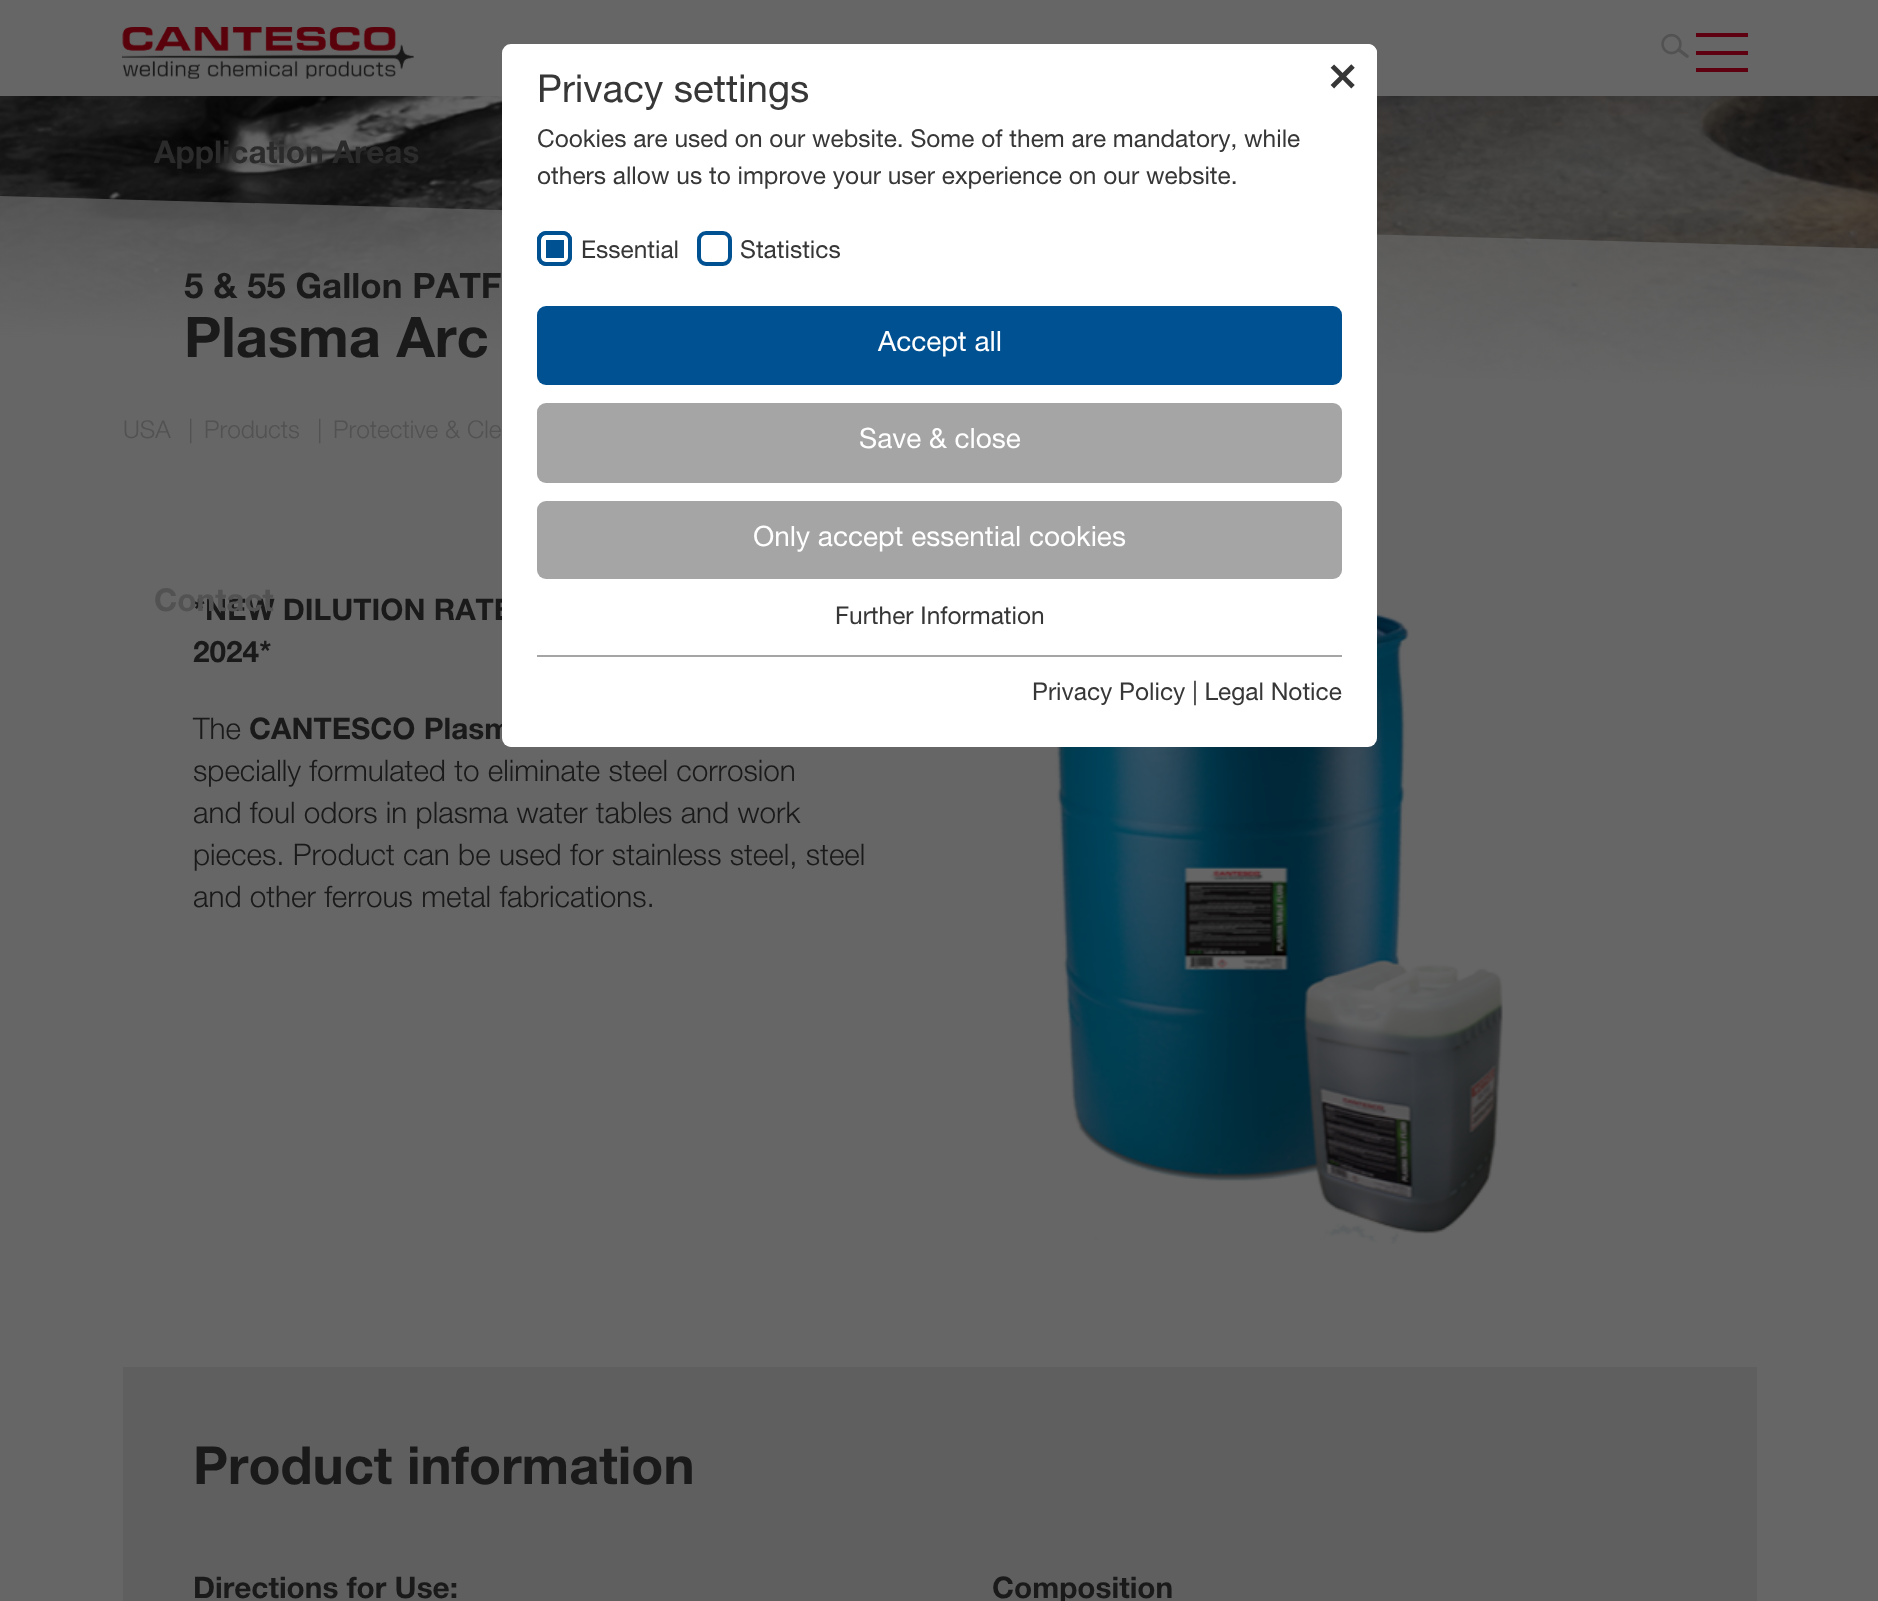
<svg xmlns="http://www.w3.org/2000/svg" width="1878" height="1601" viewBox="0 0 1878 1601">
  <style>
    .t1 { font: 31.5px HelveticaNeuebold; fill: #2b2b2b; }
    .t2 { font: 29.75px HelveticaNeuebold; fill: #1a1a1a; }
    .t3 { font: 31.5px HelveticaNeuebold; fill: #525252; }
    .t4 { font: 38.5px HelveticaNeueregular; fill: #373737; }
    .t5 { font: bold 38.5px DejaVu Sans; fill: #373737; }
    .t6 { font: 24.5px HelveticaNeueregular; fill: #373737; }
    .t7 { font: 28px HelveticaNeueregular; fill: #fff; }
    .t8 { font: 35px HelveticaNeuebold; fill: #1a1a1a; }
    .t9 { font: 56px HelveticaNeuebold; fill: #1a1a1a; }
    .t10 { font: 24.5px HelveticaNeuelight; fill: #525252; }
    .t11 { font: 29.75px HelveticaNeuelight; fill: #1a1a1a; }
    .t12 { font: 52.5px HelveticaNeuebold; fill: #1a1a1a; }
  </style>
  <defs>
    <clipPath id="clip1"><rect x="0" y="196" width="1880" height="196"/></clipPath>
    <linearGradient id="g1" gradientUnits="userSpaceOnUse" x1="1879" y1="248" x2="1873" y2="444"><stop offset="0" stop-color="#666" stop-opacity="0.7"/><stop offset="0.75" stop-color="#666"/><stop offset="1" stop-color="#666"/></linearGradient>
  </defs>
  <rect width="100%" height="100%" fill="#666"/>
  <image x="122" y="26" width="292" height="53" href="images/1.png"/>
  <image x="1661" y="33" width="28" height="25" href="images/2.png"/>
  <rect x="1696" y="51" width="52" height="4" fill="#5e0010"/>
  <rect x="1696" y="33" width="52" height="4" fill="#5e0010"/>
  <rect x="1696" y="68" width="52" height="4" fill="#5e0010"/>
  <image x="0" y="96" width="1878" height="296" href="images/3.png"/>
  <text x="154" y="163" class="t1">Application Areas</text>
  <text x="193" y="620" class="t2">*NEW DILUTION RATE</text>
  <text x="154" y="611" class="t3">Contact</text>
  <g clip-path="url(#clip1)">
    <path d="M0 196L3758 301L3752 497L-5 392Z" fill="url(#g1)"/>
  </g>
  <text x="249" y="739" class="t2">CANTESCO Plasm</text>
  <image x="1055" y="614" width="448" height="630" href="images/4.png"/>
  <rect x="502" y="44" width="875" height="703" rx="9" fill="#fff"/>
  <text x="537" y="102" class="t4">Privacy settings</text>
  <path d="M1307 44H1368C1373 44 1377 48 1377 53V119H1307Z" fill="#fff"/>
  <text x="1326" y="91" class="t5">✕</text>
  <text x="537" y="147" class="t6">Cookies are used on our website. Some of them are mandatory, while</text>
  <text x="537" y="184" class="t6">others allow us to improve your user experience on our website.</text>
  <rect x="537" y="231" width="35" height="35" rx="9" fill="#005192"/>
  <rect x="543.5" y="237.5" width="23" height="23" rx="2.5" fill="none" stroke="#fff" stroke-width="5"/>
  <rect x="539" y="233" width="31" height="31" rx="7" fill="none" stroke="#005192" stroke-width="4"/>
  <text x="581" y="258" class="t6">Essential</text>
  <rect x="699" y="233" width="31" height="31" rx="7" fill="none" stroke="#005192" stroke-width="4"/>
  <text x="740" y="258" class="t6">Statistics</text>
  <rect x="537" y="306" width="805" height="79" rx="9" fill="#005192"/>
  <text x="878" y="351" class="t7">Accept all</text>
  <rect x="537" y="403" width="805" height="80" rx="9" fill="#a5a5a5"/>
  <text x="859" y="448" class="t7">Save &amp; close</text>
  <rect x="537" y="501" width="805" height="78" rx="9" fill="#a5a5a5"/>
  <text x="753" y="546" class="t7">Only accept essential cookies</text>
  <text x="835" y="624" class="t6">Further Information</text>
  <rect x="537" y="655" width="805" height="2" fill="#a5a5a5"/>
  <text x="1032" y="700" class="t6">Privacy Policy | Legal Notice</text>
  <text x="184" y="298" class="t8">5 &amp; 55 Gallon PATF</text>
  <text x="184" y="357" class="t9">Plasma Arc</text>
  <text x="123" y="438" class="t10">USA</text>
  <text x="188" y="438" class="t10">|</text>
  <text x="204" y="438" class="t10">Products</text>
  <text x="317" y="438" class="t10">|</text>
  <text x="333" y="438" class="t10">Protective &amp; Cle</text>
  <text x="193" y="662" class="t2">2024*</text>
  <text x="193" y="739" class="t11">The</text>
  <text x="193" y="781" class="t11">specially formulated to eliminate steel corrosion</text>
  <text x="193" y="823" class="t11">and foul odors in plasma water tables and work</text>
  <text x="193" y="865" class="t11">pieces. Product can be used for stainless steel, steel</text>
  <text x="193" y="907" class="t11">and other ferrous metal fabrications.</text>
  <rect x="123" y="1367" width="1634" height="234" fill="#5f5f5f"/>
  <text x="193" y="1484" class="t12">Product information</text>
  <text x="193" y="1598" class="t2">Directions for Use:</text>
  <text x="992" y="1598" class="t2">Composition</text>
</svg>
